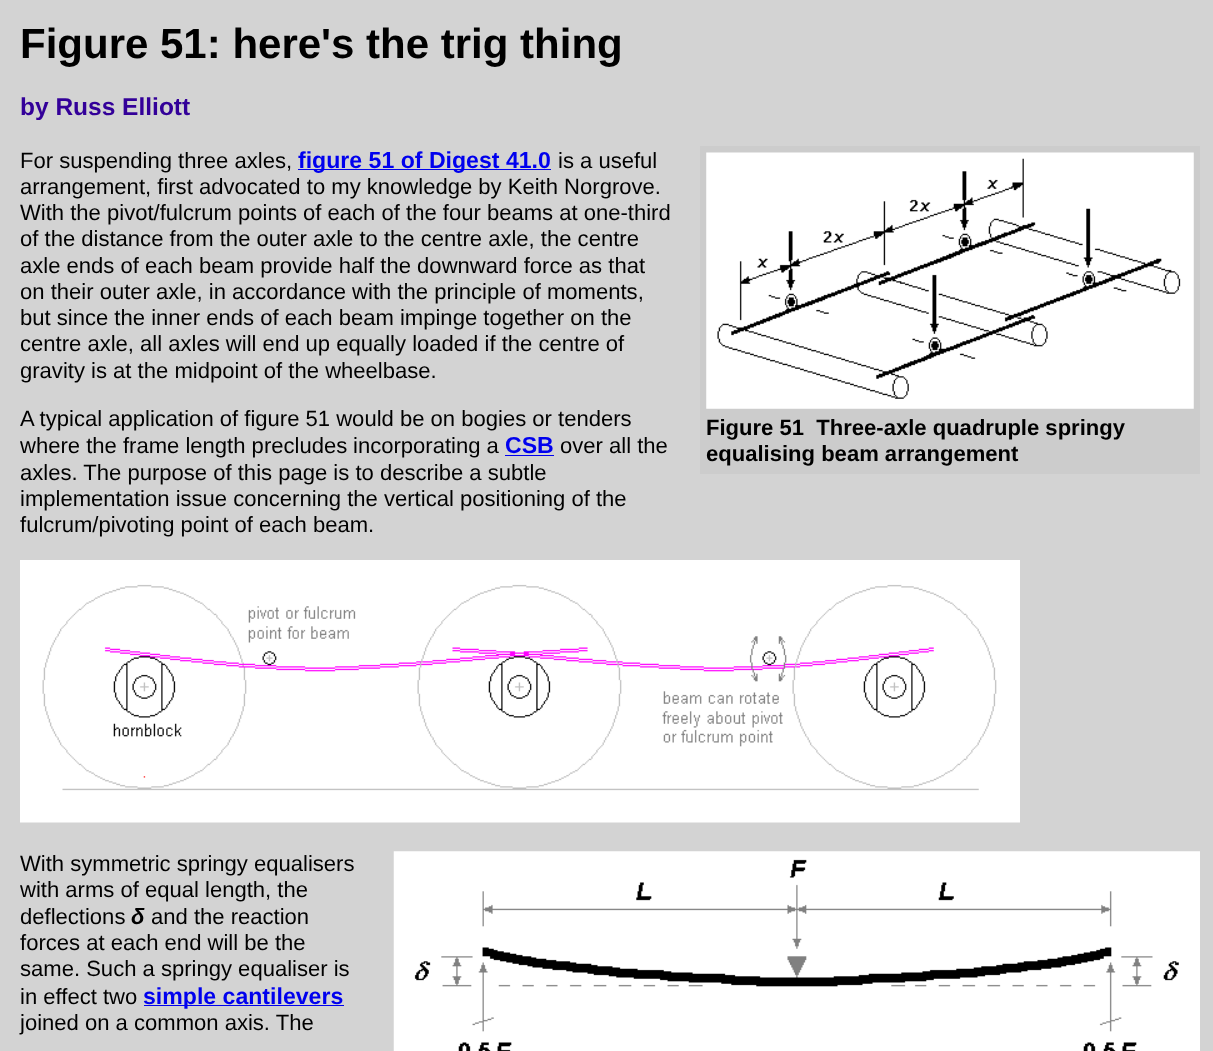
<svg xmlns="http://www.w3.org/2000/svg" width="1213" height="1051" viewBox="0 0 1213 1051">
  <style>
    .t1 { font: bold 42px Liberation Sans; fill: #000; }
    .t2 { font: bold 24.5px Liberation Sans; fill: #309; }
    .t3 { font: 22.05px Liberation Sans; fill: #000; }
    .t4 { font: bold 23.1px Liberation Sans; fill: #00e; }
    .t5 { font: bold 22.05px Liberation Sans; fill: #000; }
    .t6 { font: italic bold 22.05px Liberation Sans; fill: #000; }
  </style>
  <rect width="100%" height="100%" fill="#d3d3d3"/>
  <text x="20" y="58" class="t1">Figure 51: here's the trig thing</text>
  <text x="20" y="115" class="t2">by Russ Elliott</text>
  <text x="20" y="168" class="t3">For suspending three axles,</text>
  <rect x="298" y="169" width="253" height="1" fill="#00e"/>
  <text x="298" y="168" class="t4">figure 51 of Digest 41.0</text>
  <text x="558" y="168" class="t3">is a useful</text>
  <text x="20" y="194" class="t3">arrangement, first advocated to my knowledge by Keith Norgrove.</text>
  <text x="20" y="220" class="t3">With the pivot/fulcrum points of each of the four beams at one-third</text>
  <text x="20" y="246" class="t3">of the distance from the outer axle to the centre axle, the centre</text>
  <text x="20" y="273" class="t3">axle ends of each beam provide half the downward force as that</text>
  <text x="20" y="299" class="t3">on their outer axle, in accordance with the principle of moments,</text>
  <text x="20" y="325" class="t3">but since the inner ends of each beam impinge together on the</text>
  <text x="20" y="351" class="t3">centre axle, all axles will end up equally loaded if the centre of</text>
  <text x="20" y="378" class="t3">gravity is at the midpoint of the wheelbase.</text>
  <text x="20" y="426" class="t3">A typical application of figure 51 would be on bogies or tenders</text>
  <text x="20" y="453" class="t3">where the frame length precludes</text>
  <text x="353" y="453" class="t3">incorporating a</text>
  <text x="505" y="453" class="t4">CSB</text>
  <rect x="505" y="455" width="49" height="1" fill="#00e"/>
  <text x="560" y="453" class="t3">over all the</text>
  <text x="20" y="480" class="t3">axles. The purpose of this page is to describe a subtle</text>
  <text x="20" y="506" class="t3">implementation issue concerning the vertical positioning of the</text>
  <text x="20" y="532" class="t3">fulcrum/pivoting point of each beam.</text>
  <rect x="700" y="146" width="500" height="328" fill="#ccc"/>
  <image x="706" y="152" width="488" height="257" href="images/1.png"/>
  <text x="706" y="435" class="t5" xml:space="preserve">Figure 51  Three-axle quadruple springy</text>
  <text x="706" y="461" class="t5">equalising beam arrangement</text>
  <image x="20" y="560" width="1000" height="263" href="images/2.png"/>
  <text x="20" y="871" class="t3">With symmetric springy equalisers</text>
  <text x="20" y="897" class="t3">with arms of equal length, the</text>
  <text x="20" y="924" class="t3">deflections</text>
  <text x="131" y="924" class="t6">δ</text>
  <text x="151" y="924" class="t3">and the reaction</text>
  <text x="20" y="950" class="t3">forces at each end will be the</text>
  <text x="20" y="976" class="t3">same. Such a springy equaliser is</text>
  <text x="20" y="1004" class="t3">in effect two</text>
  <rect x="144" y="1005" width="200" height="1" fill="#00e"/>
  <text x="143" y="1004" class="t4">simple cantilevers</text>
  <text x="20" y="1030" class="t3">joined on a common axis. The</text>
  <image x="393" y="851" width="807" height="200" href="images/3.png"/>
</svg>
